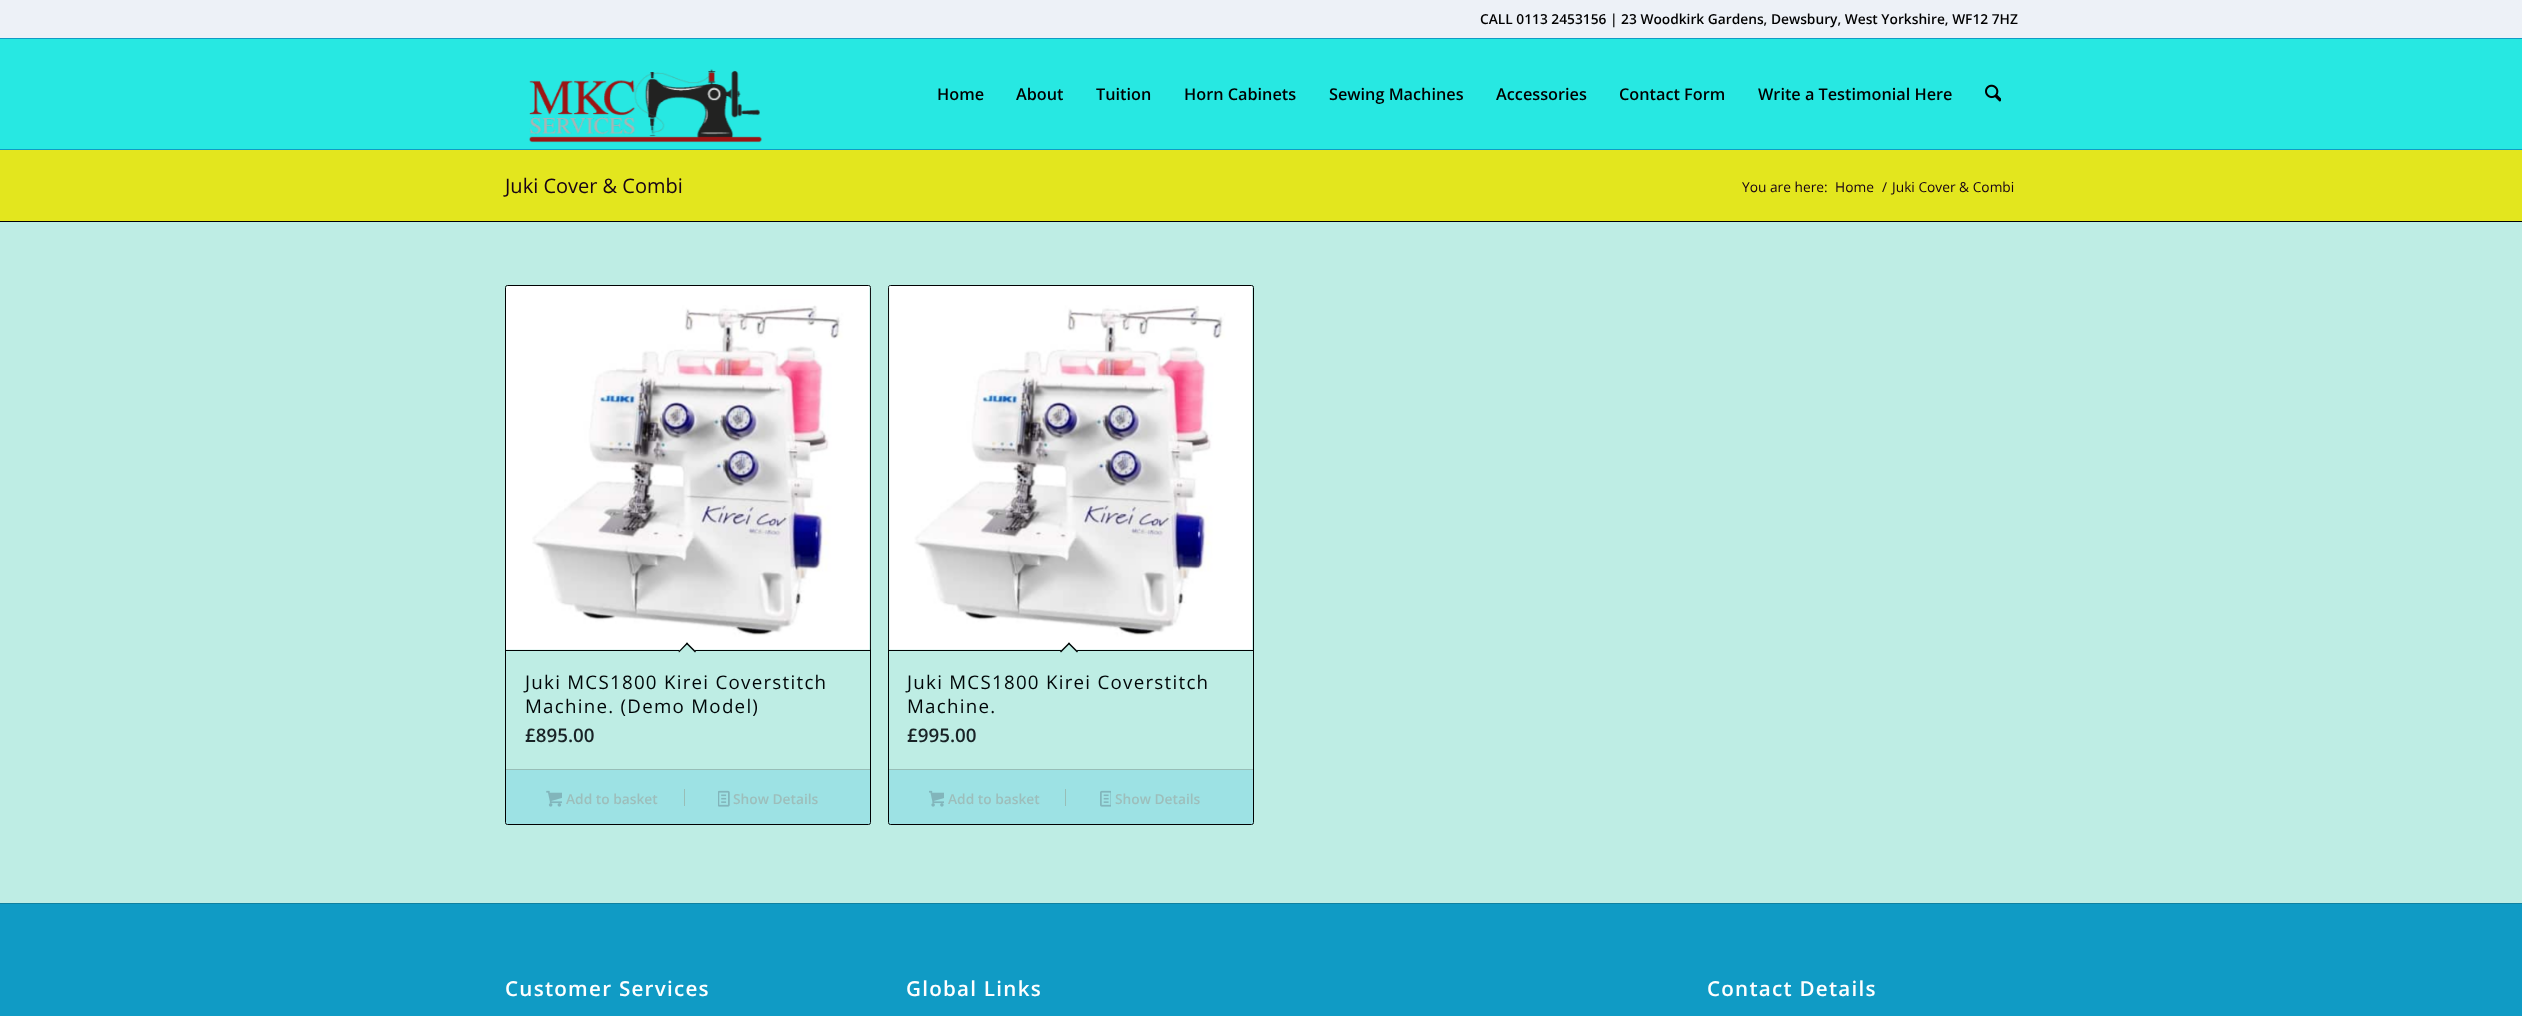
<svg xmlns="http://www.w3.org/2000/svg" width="2522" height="1016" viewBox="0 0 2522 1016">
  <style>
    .t1 { font: 600 13.75px Open Sans; fill: #000; }
    .t2 { font: 600 16.25px Open Sans; fill: #000; }
    .t3 { font: 20px Open Sans; fill: #170217; }
    .t4 { font: 13.75px Open Sans; fill: #170217; }
    .t5 { font: 18.75px Open Sans; letter-spacing: 1.25px; fill: #000608; }
    .t6 { font: 600 18.75px Open Sans; fill: #192326; }
    .t7 { font: 600 13.75px Open Sans; fill: #9dbebb; }
    .t8 { font: 600 20.6px Open Sans; letter-spacing: 1.25px; fill: #fff; }
  </style>
  <rect width="100%" height="100%" fill="#27e8e2"/>
  <rect x="0" y="0" width="2522" height="38" fill="#edf1f7"/>
  <rect x="0" y="38" width="2522" height="1" fill="#109bc5"/>
  <text x="1480" y="24" class="t1">CALL 0113 2453156 | 23 Woodkirk Gardens, Dewsbury, West Yorkshire, WF12 7HZ</text>
  <rect x="0" y="149" width="2522" height="1" fill="#109bc5"/>
  <image x="529" y="69" width="233" height="74" href="images/1.png"/>
  <text x="937" y="100" class="t2">Home</text>
  <text x="1016" y="100" class="t2">About</text>
  <text x="1096" y="100" class="t2">Tuition</text>
  <text x="1184" y="100" class="t2">Horn Cabinets</text>
  <text x="1329" y="100" class="t2">Sewing Machines</text>
  <text x="1496" y="100" class="t2">Accessories</text>
  <text x="1619" y="100" class="t2">Contact Form</text>
  <text x="1758" y="100" class="t2">Write a Testimonial Here</text>
  <image x="1985" y="84" width="16" height="18" href="images/2.png"/>
  <rect x="0" y="150" width="2522" height="71" fill="#e3e61e"/>
  <text x="505" y="193" class="t3">Juki Cover &amp; Combi</text>
  <text x="1742" y="192" class="t4">You are here:</text>
  <text x="1835" y="192" class="t4">Home</text>
  <text x="1882" y="192" class="t4">/</text>
  <text x="1892" y="192" class="t4">Juki Cover &amp; Combi</text>
  <rect x="0" y="222" width="2522" height="681" fill="#beede4"/>
  <rect x="0" y="221" width="2522" height="1" fill="#000203"/>
  <rect x="505.5" y="285.5" width="365" height="539" rx="2" fill="none" stroke="#000203"/>
  <image x="506" y="286" width="365" height="364" href="images/3.png"/>
  <rect x="506" y="650" width="364" height="1" fill="#000203"/>
  <path d="M687 642.5L696 651.5L687 660.5L678.5 651.5Z" fill="#beede4"/>
  <path d="M687 642.5L696 651.5L695 652.5L686 643.5Z" fill="#000203"/>
  <path d="M687 642.5L688 643.5L679 652.5L678.5 651.5Z" fill="#000203"/>
  <text x="525" y="689" class="t5">Juki MCS1800 Kirei Coverstitch</text>
  <text x="525" y="713" class="t5">Machine. (Demo Model)</text>
  <text x="525" y="742" class="t6">£895.00</text>
  <rect x="506" y="770" width="364" height="54" fill="#19bae633"/>
  <rect x="506" y="769" width="364" height="1" fill="#98beb7"/>
  <image x="546" y="790" width="16" height="17" href="images/4.png"/>
  <text x="566" y="804" class="t7">Add to basket</text>
  <rect x="684" y="789" width="1" height="17" fill="#98beb7"/>
  <image x="718" y="790" width="12" height="17" href="images/5.png"/>
  <text x="733" y="804" class="t7">Show Details</text>
  <rect x="888.5" y="285.5" width="365" height="539" rx="2" fill="none" stroke="#000203"/>
  <image x="888" y="286" width="365" height="364" href="images/6.png"/>
  <rect x="889" y="650" width="364" height="1" fill="#000203"/>
  <path d="M1069 642.5L1078 651.5L1069 660.5L1060 651.5Z" fill="#beede4"/>
  <path d="M1069 642.5L1078 651.5L1077 652.5L1068 643.5Z" fill="#000203"/>
  <path d="M1069 642.5L1070 643.5L1061 652.5L1060 651.5Z" fill="#000203"/>
  <text x="907" y="689" class="t5">Juki MCS1800 Kirei Coverstitch</text>
  <text x="907" y="713" class="t5">Machine.</text>
  <text x="907" y="742" class="t6">£995.00</text>
  <rect x="889" y="770" width="364" height="54" fill="#19bae633"/>
  <rect x="889" y="769" width="364" height="1" fill="#98beb7"/>
  <image x="929" y="790" width="15" height="17" href="images/7.png"/>
  <text x="948" y="804" class="t7">Add to basket</text>
  <rect x="1065" y="789" width="1" height="17" fill="#98beb7"/>
  <image x="1100" y="790" width="11" height="17" href="images/8.png"/>
  <text x="1115" y="804" class="t7">Show Details</text>
  <rect x="0" y="904" width="2522" height="112" fill="#109bc5"/>
  <rect x="0" y="903" width="2522" height="1" fill="#0f81a1"/>
  <text x="505" y="996" class="t8">Customer Services</text>
  <text x="906" y="996" class="t8">Global Links</text>
  <text x="1707" y="996" class="t8">Contact Details</text>
</svg>
